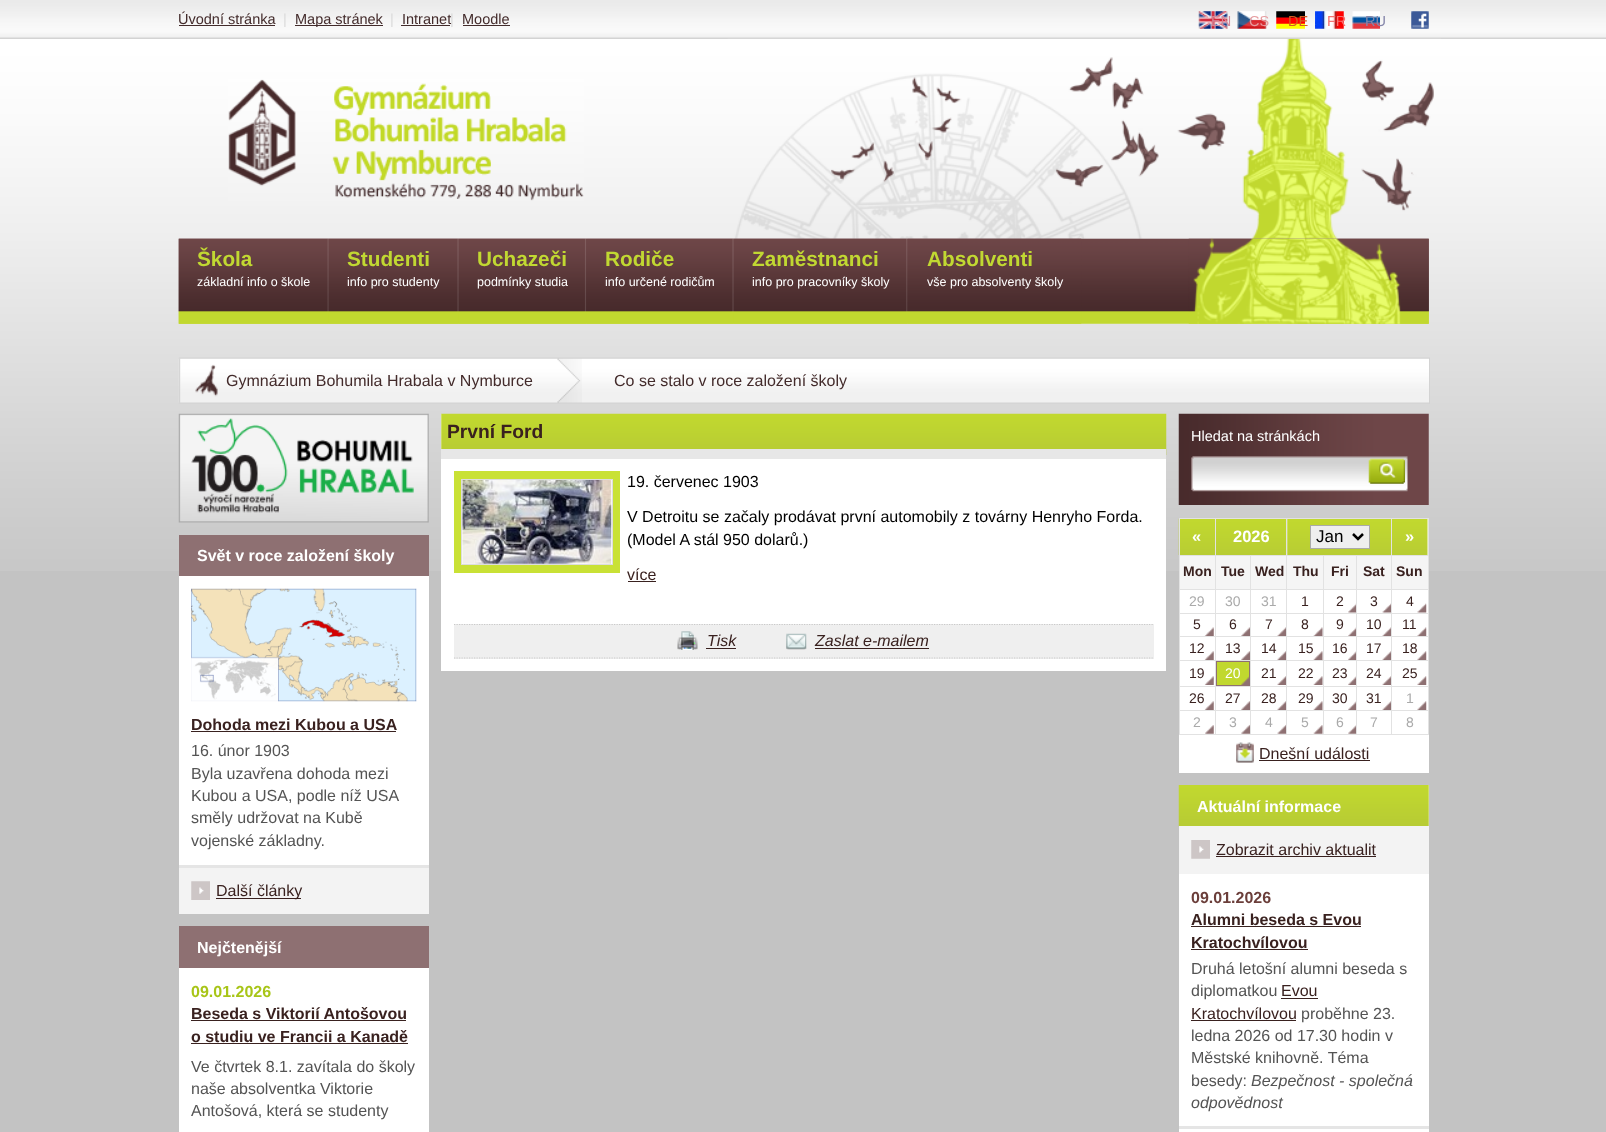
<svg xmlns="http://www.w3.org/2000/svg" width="1606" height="1132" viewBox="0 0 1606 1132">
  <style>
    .t1 { font: 14.5px Liberation Sans; fill: #432b2b; }
    .t2 { font: 14.5px Liberation Sans; fill: #dadada; }
    .t3 { font: 14.5px Liberation Sans; fill: #d2899b; }
    .t4 { font: 14.5px Liberation Sans; fill: #e69da0; }
    .t5 { font: 14.5px Liberation Sans; fill: #d35e21; }
    .t6 { font: 14.5px Liberation Sans; fill: #f67271; }
    .t7 { font: 14.5px Liberation Sans; fill: #8586aa; }
    .t8 { font: bold 20.75px Liberation Sans; fill: #c1d832; }
    .t9 { font: 12.5px Liberation Sans; fill: #fff; }
    .t10 { font: 16px Liberation Sans; fill: #432b2b; }
    .t11 { font: bold 19.25px Liberation Sans; fill: #39211f; }
    .t12 { font: 16px Liberation Sans; fill: #000; }
    .t13 { font: 16px Liberation Sans; fill: #39211f; }
    .t14 { font: italic 16px Liberation Sans; fill: #39211f; }
    .t15 { font: 14.5px Liberation Sans; fill: #fff; }
    .t16 { font: bold 16.5px Liberation Sans; fill: #fff; }
    .t17 { font: 17px Liberation Sans; fill: #000; }
    .t18 { font: bold 14px Liberation Sans; fill: #39211f; }
    .t19 { font: 14px Liberation Sans; fill: #aaa; }
    .t20 { font: 14px Liberation Sans; fill: #39211f; }
    .t21 { font: 14px Liberation Sans; fill: #fff; }
    .t22 { font: bold 16px Liberation Sans; fill: #fff; }
    .t23 { font: bold 16px Liberation Sans; fill: #6b3e3a; }
    .t24 { font: bold 16px Liberation Sans; fill: #39211f; }
    .t25 { font: 16px Liberation Sans; fill: #545454; }
    .t26 { font: italic 16px Liberation Sans; fill: #545454; }
    .t27 { font: bold 16px Liberation Sans; fill: #a8c518; }
  </style>
  <rect width="100%" height="100%" fill="#c3c3c3"/>
  <image x="0" y="38" width="1606" height="533" href="images/1.png"/>
  <image x="727" y="38" width="714" height="201" href="images/9.png"/>
  <image x="0" y="0" width="1606" height="39" href="images/2.png"/>
  <text x="178" y="24" class="t1">Úvodní stránka</text>
  <rect x="179" y="25" width="96" height="1" fill="#432b2b"/>
  <text x="283" y="24" class="t2">|</text>
  <rect x="295" y="25" width="88" height="1" fill="#432b2b"/>
  <text x="295" y="24" class="t1">Mapa stránek</text>
  <text x="390" y="24" class="t2">|</text>
  <text x="402" y="24" class="t1">Intranet</text>
  <rect x="401" y="25" width="49" height="1" fill="#432b2b"/>
  <text x="450" y="24" class="t2">|</text>
  <text x="462" y="24" class="t1">Moodle</text>
  <rect x="463" y="25" width="47" height="1" fill="#432b2b"/>
  <image x="1198" y="11" width="30" height="18" href="images/3.png"/>
  <text x="1211" y="26" class="t3">EN</text>
  <image x="1237" y="11" width="30" height="18" href="images/4.png"/>
  <text x="1249" y="26" class="t4">CS</text>
  <image x="1276" y="11" width="29" height="18" href="images/5.png"/>
  <text x="1288" y="26" class="t5">DE</text>
  <image x="1315" y="11" width="29" height="18" href="images/6.png"/>
  <text x="1327" y="26" class="t6">FR</text>
  <image x="1352" y="11" width="28" height="18" href="images/7.png"/>
  <text x="1365" y="26" class="t7">RU</text>
  <image x="1411" y="11" width="18" height="18" href="images/8.png"/>
  <image x="228" y="79" width="356" height="122" href="images/10.png"/>
  <image x="178" y="238" width="1251" height="86" href="images/11.png"/>
  <image x="178" y="238" width="151" height="86" href="images/12.png"/>
  <text x="197" y="266" class="t8">Škola</text>
  <text x="197" y="286" class="t9">základní info o škole</text>
  <image x="328" y="238" width="131" height="86" href="images/13.png"/>
  <text x="347" y="266" class="t8">Studenti</text>
  <text x="347" y="286" class="t9">info pro studenty</text>
  <image x="458" y="238" width="129" height="86" href="images/14.png"/>
  <text x="477" y="266" class="t8">Uchazeči</text>
  <text x="477" y="286" class="t9">podmínky studia</text>
  <image x="586" y="238" width="148" height="86" href="images/15.png"/>
  <text x="605" y="266" class="t8">Rodiče</text>
  <text x="605" y="286" class="t9">info určené rodičům</text>
  <image x="733" y="238" width="175" height="86" href="images/16.png"/>
  <text x="752" y="266" class="t8">Zaměstnanci</text>
  <text x="752" y="286" class="t9">info pro pracovníky školy</text>
  <image x="907" y="238" width="175" height="86" href="images/17.png"/>
  <text x="927" y="266" class="t8">Absolventi</text>
  <text x="927" y="286" class="t9">vše pro absolventy školy</text>
  <image x="1188" y="238" width="241" height="86" href="images/18.png"/>
  <rect x="441" y="414" width="725" height="257" fill="#fff"/>
  <image x="178" y="357" width="1252" height="47" href="images/19.png"/>
  <rect x="1429" y="358" width="1" height="46" fill="#d3d3d3"/>
  <image x="178" y="358" width="40" height="45" href="images/20.png"/>
  <text x="226" y="386" class="t10">Gymnázium Bohumila Hrabala v Nymburce</text>
  <image x="557" y="358" width="25" height="45" href="images/21.png"/>
  <text x="614" y="386" class="t10">Co se stalo v roce založení školy</text>
  <image x="441" y="413" width="726" height="42" href="images/22.png"/>
  <rect x="441" y="449" width="725" height="10" fill="#e7e7e7"/>
  <text x="447" y="438" class="t11">První Ford</text>
  <rect x="458" y="475" width="158" height="94" fill="none" stroke="#c9e135" stroke-width="8"/>
  <rect x="461.5" y="479.5" width="151" height="85" fill="none" stroke="#ddd"/>
  <image x="462" y="480" width="150" height="84" href="images/23.png"/>
  <text x="627" y="487" class="t12">19. červenec 1903</text>
  <text x="627" y="522" class="t12">V Detroitu se začaly prodávat první automobily z továrny Henryho Forda.</text>
  <text x="627" y="545" class="t12">(Model A stál 950 dolarů.)</text>
  <text x="627" y="580" class="t13">více</text>
  <rect x="628" y="581" width="28" height="1" fill="#39211f"/>
  <rect x="454" y="624" width="700" height="35" fill="#efefef"/>
  <path d="M454 624.5H1154" fill="none" stroke="#c9c9c9" stroke-width="1.2" stroke-dasharray="1.25 1.25"/>
  <path d="M454 658H1154" fill="none" stroke="#c9c9c9" stroke-width="1.2" stroke-dasharray="1.25 1.25"/>
  <image x="677" y="631" width="21" height="19" href="images/24.png"/>
  <text x="707" y="646" class="t14">Tisk</text>
  <rect x="706" y="648" width="30" height="1" fill="#39211f"/>
  <image x="786" y="633" width="21" height="17" href="images/25.png"/>
  <text x="815" y="646" class="t14">Zaslat e-mailem</text>
  <rect x="815" y="648" width="114" height="1" fill="#39211f"/>
  <image x="1178" y="413" width="251" height="92" href="images/26.png"/>
  <text x="1191" y="441" class="t15">Hledat na stránkách</text>
  <image x="1191" y="456" width="217" height="36" href="images/27.png"/>
  <image x="1368" y="458" width="37" height="26" href="images/28.png"/>
  <rect x="1179" y="519" width="250" height="254" fill="#fff"/>
  <image x="1178" y="518" width="37" height="37" href="images/29.png"/>
  <rect x="1391" y="518" width="38" height="1" fill="#e2e2e2"/>
  <rect x="1391" y="555" width="38" height="1" fill="#e2e2e2"/>
  <rect x="1391" y="589" width="38" height="1" fill="#e2e2e2"/>
  <rect x="1391" y="613" width="38" height="1" fill="#e2e2e2"/>
  <rect x="1391" y="636" width="38" height="1" fill="#e2e2e2"/>
  <rect x="1391" y="660" width="38" height="1" fill="#e2e2e2"/>
  <rect x="1391" y="686" width="38" height="1" fill="#e2e2e2"/>
  <rect x="1391" y="710" width="38" height="1" fill="#e2e2e2"/>
  <rect x="1428" y="710" width="1" height="25" fill="#e2e2e2"/>
  <rect x="1391" y="734" width="38" height="1" fill="#e2e2e2"/>
  <rect x="1391" y="710" width="1" height="25" fill="#e2e2e2"/>
  <rect x="1356" y="710" width="37" height="1" fill="#e2e2e2"/>
  <rect x="1391" y="686" width="1" height="25" fill="#e2e2e2"/>
  <rect x="1356" y="686" width="37" height="1" fill="#e2e2e2"/>
  <rect x="1391" y="660" width="1" height="28" fill="#e2e2e2"/>
  <rect x="1356" y="660" width="37" height="1" fill="#e2e2e2"/>
  <rect x="1391" y="636" width="1" height="25" fill="#e2e2e2"/>
  <rect x="1356" y="636" width="37" height="1" fill="#e2e2e2"/>
  <rect x="1391" y="613" width="1" height="25" fill="#e2e2e2"/>
  <rect x="1356" y="613" width="37" height="1" fill="#e2e2e2"/>
  <rect x="1391" y="589" width="1" height="25" fill="#e2e2e2"/>
  <rect x="1356" y="589" width="37" height="1" fill="#e2e2e2"/>
  <rect x="1391" y="555" width="1" height="35" fill="#e2e2e2"/>
  <rect x="1356" y="555" width="37" height="1" fill="#e2e2e2"/>
  <rect x="1391" y="518" width="1" height="38" fill="#e2e2e2"/>
  <rect x="1286" y="518" width="107" height="1" fill="#e2e2e2"/>
  <image x="1216" y="519" width="72" height="36" href="images/30.png"/>
  <rect x="1356" y="734" width="37" height="1" fill="#e2e2e2"/>
  <rect x="1356" y="710" width="1" height="25" fill="#e2e2e2"/>
  <rect x="1323" y="710" width="35" height="1" fill="#e2e2e2"/>
  <rect x="1356" y="686" width="1" height="25" fill="#e2e2e2"/>
  <rect x="1323" y="686" width="35" height="1" fill="#e2e2e2"/>
  <rect x="1356" y="660" width="1" height="28" fill="#e2e2e2"/>
  <rect x="1323" y="660" width="35" height="1" fill="#e2e2e2"/>
  <rect x="1356" y="636" width="1" height="25" fill="#e2e2e2"/>
  <rect x="1323" y="636" width="35" height="1" fill="#e2e2e2"/>
  <rect x="1356" y="613" width="1" height="25" fill="#e2e2e2"/>
  <rect x="1323" y="613" width="35" height="1" fill="#e2e2e2"/>
  <rect x="1356" y="589" width="1" height="25" fill="#e2e2e2"/>
  <rect x="1323" y="589" width="35" height="1" fill="#e2e2e2"/>
  <rect x="1356" y="555" width="1" height="35" fill="#e2e2e2"/>
  <rect x="1323" y="555" width="35" height="1" fill="#e2e2e2"/>
  <rect x="1323" y="734" width="35" height="1" fill="#e2e2e2"/>
  <rect x="1323" y="710" width="1" height="25" fill="#e2e2e2"/>
  <rect x="1286" y="710" width="38" height="1" fill="#e2e2e2"/>
  <rect x="1323" y="686" width="1" height="25" fill="#e2e2e2"/>
  <rect x="1286" y="686" width="38" height="1" fill="#e2e2e2"/>
  <rect x="1323" y="660" width="1" height="28" fill="#e2e2e2"/>
  <rect x="1286" y="660" width="38" height="1" fill="#e2e2e2"/>
  <rect x="1323" y="636" width="1" height="25" fill="#e2e2e2"/>
  <rect x="1286" y="636" width="38" height="1" fill="#e2e2e2"/>
  <rect x="1323" y="613" width="1" height="25" fill="#e2e2e2"/>
  <rect x="1286" y="613" width="38" height="1" fill="#e2e2e2"/>
  <rect x="1323" y="589" width="1" height="25" fill="#e2e2e2"/>
  <rect x="1286" y="589" width="38" height="1" fill="#e2e2e2"/>
  <rect x="1323" y="555" width="1" height="35" fill="#e2e2e2"/>
  <rect x="1286" y="555" width="38" height="1" fill="#e2e2e2"/>
  <rect x="1251" y="556" width="72" height="33" fill="#f5f5f5"/>
  <rect x="1286" y="734" width="38" height="1" fill="#e2e2e2"/>
  <rect x="1286" y="710" width="1" height="25" fill="#e2e2e2"/>
  <rect x="1250" y="710" width="38" height="1" fill="#e2e2e2"/>
  <rect x="1286" y="686" width="1" height="25" fill="#e2e2e2"/>
  <rect x="1250" y="686" width="38" height="1" fill="#e2e2e2"/>
  <rect x="1286" y="660" width="1" height="28" fill="#e2e2e2"/>
  <rect x="1250" y="660" width="38" height="1" fill="#e2e2e2"/>
  <rect x="1286" y="636" width="1" height="25" fill="#e2e2e2"/>
  <rect x="1250" y="636" width="38" height="1" fill="#e2e2e2"/>
  <rect x="1286" y="613" width="1" height="25" fill="#e2e2e2"/>
  <rect x="1250" y="613" width="38" height="1" fill="#e2e2e2"/>
  <rect x="1286" y="589" width="1" height="25" fill="#e2e2e2"/>
  <rect x="1250" y="589" width="38" height="1" fill="#e2e2e2"/>
  <rect x="1286" y="555" width="1" height="35" fill="#e2e2e2"/>
  <rect x="1250" y="555" width="38" height="1" fill="#e2e2e2"/>
  <rect x="1286" y="518" width="1" height="38" fill="#e2e2e2"/>
  <rect x="1215" y="518" width="73" height="1" fill="#e2e2e2"/>
  <rect x="1250" y="734" width="38" height="1" fill="#e2e2e2"/>
  <rect x="1250" y="710" width="1" height="25" fill="#e2e2e2"/>
  <rect x="1215" y="710" width="36" height="1" fill="#e2e2e2"/>
  <rect x="1250" y="686" width="1" height="25" fill="#e2e2e2"/>
  <rect x="1215" y="686" width="36" height="1" fill="#e2e2e2"/>
  <rect x="1250" y="660" width="1" height="28" fill="#e2e2e2"/>
  <rect x="1215" y="660" width="36" height="1" fill="#e2e2e2"/>
  <rect x="1250" y="636" width="1" height="25" fill="#e2e2e2"/>
  <rect x="1215" y="636" width="36" height="1" fill="#e2e2e2"/>
  <rect x="1250" y="613" width="1" height="25" fill="#e2e2e2"/>
  <rect x="1215" y="613" width="36" height="1" fill="#e2e2e2"/>
  <rect x="1250" y="589" width="1" height="25" fill="#e2e2e2"/>
  <rect x="1215" y="589" width="36" height="1" fill="#e2e2e2"/>
  <rect x="1250" y="555" width="1" height="35" fill="#e2e2e2"/>
  <rect x="1215" y="555" width="36" height="1" fill="#e2e2e2"/>
  <rect x="1215" y="734" width="36" height="1" fill="#e2e2e2"/>
  <rect x="1215" y="710" width="1" height="25" fill="#e2e2e2"/>
  <rect x="1179" y="710" width="37" height="1" fill="#e2e2e2"/>
  <rect x="1215" y="686" width="1" height="25" fill="#e2e2e2"/>
  <rect x="1179" y="686" width="37" height="1" fill="#e2e2e2"/>
  <rect x="1215" y="660" width="1" height="28" fill="#e2e2e2"/>
  <rect x="1179" y="660" width="37" height="1" fill="#e2e2e2"/>
  <rect x="1215" y="636" width="1" height="25" fill="#e2e2e2"/>
  <rect x="1179" y="636" width="37" height="1" fill="#e2e2e2"/>
  <rect x="1215" y="613" width="1" height="25" fill="#e2e2e2"/>
  <rect x="1179" y="613" width="37" height="1" fill="#e2e2e2"/>
  <rect x="1215" y="589" width="1" height="25" fill="#e2e2e2"/>
  <rect x="1179" y="589" width="37" height="1" fill="#e2e2e2"/>
  <rect x="1215" y="555" width="1" height="35" fill="#e2e2e2"/>
  <rect x="1179" y="555" width="37" height="1" fill="#e2e2e2"/>
  <rect x="1215" y="518" width="1" height="38" fill="#e2e2e2"/>
  <rect x="1179" y="518" width="37" height="1" fill="#e2e2e2"/>
  <rect x="1179" y="734" width="37" height="1" fill="#e2e2e2"/>
  <rect x="1179" y="710" width="1" height="25" fill="#e2e2e2"/>
  <rect x="1179" y="686" width="1" height="25" fill="#e2e2e2"/>
  <rect x="1179" y="660" width="1" height="28" fill="#e2e2e2"/>
  <rect x="1179" y="636" width="1" height="25" fill="#e2e2e2"/>
  <rect x="1179" y="613" width="1" height="25" fill="#e2e2e2"/>
  <rect x="1179" y="589" width="1" height="25" fill="#e2e2e2"/>
  <rect x="1179" y="555" width="1" height="35" fill="#e2e2e2"/>
  <rect x="1179" y="518" width="1" height="38" fill="#e2e2e2"/>
  <text x="1192" y="542" class="t16">«</text>
  <text x="1233" y="542" class="t16">2026</text>
  <image x="1287" y="519" width="104" height="36" href="images/31.png"/>
  <rect x="1310.5" y="525.5" width="59" height="23" fill="#efefef" stroke="#aaa"/>
  <path d="M1353 534L1358 539L1363 534" fill="none" stroke="#000" stroke-width="2.5"/>
  <text x="1316" y="542" class="t17">Jan</text>
  <image x="1392" y="519" width="36" height="36" href="images/32.png"/>
  <rect x="1428" y="686" width="1" height="25" fill="#e2e2e2"/>
  <rect x="1428" y="660" width="1" height="28" fill="#e2e2e2"/>
  <rect x="1428" y="636" width="1" height="25" fill="#e2e2e2"/>
  <rect x="1428" y="613" width="1" height="25" fill="#e2e2e2"/>
  <rect x="1428" y="589" width="1" height="25" fill="#e2e2e2"/>
  <rect x="1428" y="555" width="1" height="35" fill="#e2e2e2"/>
  <rect x="1428" y="518" width="1" height="38" fill="#e2e2e2"/>
  <text x="1405" y="542" class="t16">»</text>
  <rect x="1180" y="556" width="35" height="33" fill="#f5f5f5"/>
  <text x="1183" y="576" class="t18">Mon</text>
  <rect x="1216" y="556" width="34" height="33" fill="#f5f5f5"/>
  <text x="1221" y="576" class="t18">Tue</text>
  <text x="1255" y="576" class="t18">Wed</text>
  <text x="1293" y="576" class="t18">Thu</text>
  <rect x="1324" y="556" width="32" height="33" fill="#f5f5f5"/>
  <text x="1331" y="576" class="t18">Fri</text>
  <rect x="1357" y="556" width="34" height="33" fill="#f5f5f5"/>
  <text x="1363" y="576" class="t18">Sat</text>
  <rect x="1392" y="556" width="36" height="33" fill="#f5f5f5"/>
  <text x="1396" y="576" class="t18">Sun</text>
  <text x="1189" y="606" class="t19">29</text>
  <text x="1225" y="606" class="t19">30</text>
  <text x="1261" y="606" class="t19">31</text>
  <text x="1301" y="606" class="t20">1</text>
  <image x="1348" y="603" width="8" height="10" href="images/33.png"/>
  <text x="1336" y="606" class="t20">2</text>
  <image x="1382" y="603" width="9" height="10" href="images/34.png"/>
  <text x="1370" y="606" class="t20">3</text>
  <image x="1417" y="603" width="10" height="10" href="images/35.png"/>
  <text x="1406" y="606" class="t20">4</text>
  <image x="1204" y="627" width="10" height="9" href="images/36.png"/>
  <text x="1193" y="629" class="t20">5</text>
  <image x="1241" y="627" width="9" height="9" href="images/37.png"/>
  <text x="1229" y="629" class="t20">6</text>
  <image x="1277" y="627" width="9" height="9" href="images/38.png"/>
  <text x="1265" y="629" class="t20">7</text>
  <image x="1313" y="627" width="10" height="9" href="images/39.png"/>
  <text x="1301" y="629" class="t20">8</text>
  <image x="1348" y="627" width="8" height="9" href="images/40.png"/>
  <text x="1336" y="629" class="t20">9</text>
  <image x="1382" y="627" width="9" height="9" href="images/41.png"/>
  <text x="1366" y="629" class="t20">10</text>
  <image x="1417" y="627" width="10" height="9" href="images/42.png"/>
  <text x="1402" y="629" class="t20">11</text>
  <image x="1204" y="651" width="10" height="9" href="images/43.png"/>
  <text x="1189" y="653" class="t20">12</text>
  <image x="1241" y="651" width="9" height="9" href="images/44.png"/>
  <text x="1225" y="653" class="t20">13</text>
  <image x="1277" y="651" width="9" height="9" href="images/45.png"/>
  <text x="1261" y="653" class="t20">14</text>
  <image x="1313" y="651" width="10" height="9" href="images/46.png"/>
  <text x="1298" y="653" class="t20">15</text>
  <image x="1348" y="651" width="8" height="9" href="images/47.png"/>
  <text x="1332" y="653" class="t20">16</text>
  <image x="1382" y="651" width="9" height="9" href="images/48.png"/>
  <text x="1366" y="653" class="t20">17</text>
  <image x="1417" y="651" width="10" height="9" href="images/49.png"/>
  <text x="1402" y="653" class="t20">18</text>
  <image x="1204" y="676" width="10" height="9" href="images/43.png"/>
  <text x="1189" y="678" class="t20">19</text>
  <rect x="1217" y="662" width="32" height="23" fill="#c1d82f"/>
  <image x="1241" y="676" width="8" height="9" href="images/50.png"/>
  <rect x="1216.5" y="661.5" width="33" height="24" fill="none" stroke="#8e7072"/>
  <text x="1225" y="678" class="t21">20</text>
  <image x="1277" y="676" width="9" height="9" href="images/45.png"/>
  <text x="1261" y="678" class="t20">21</text>
  <image x="1313" y="676" width="10" height="9" href="images/46.png"/>
  <text x="1298" y="678" class="t20">22</text>
  <image x="1348" y="676" width="8" height="9" href="images/47.png"/>
  <text x="1332" y="678" class="t20">23</text>
  <image x="1382" y="676" width="9" height="9" href="images/48.png"/>
  <text x="1366" y="678" class="t20">24</text>
  <image x="1417" y="676" width="10" height="9" href="images/49.png"/>
  <text x="1402" y="678" class="t20">25</text>
  <image x="1204" y="701" width="10" height="9" href="images/43.png"/>
  <text x="1189" y="703" class="t20">26</text>
  <image x="1241" y="701" width="9" height="9" href="images/44.png"/>
  <text x="1225" y="703" class="t20">27</text>
  <image x="1277" y="701" width="9" height="9" href="images/45.png"/>
  <text x="1261" y="703" class="t20">28</text>
  <image x="1313" y="701" width="10" height="9" href="images/46.png"/>
  <text x="1298" y="703" class="t20">29</text>
  <image x="1348" y="701" width="8" height="9" href="images/47.png"/>
  <text x="1332" y="703" class="t20">30</text>
  <image x="1382" y="701" width="9" height="9" href="images/48.png"/>
  <text x="1366" y="703" class="t20">31</text>
  <image x="1417" y="701" width="10" height="9" href="images/49.png"/>
  <text x="1406" y="703" class="t19">1</text>
  <image x="1205" y="725" width="9" height="9" href="images/51.png"/>
  <text x="1193" y="727" class="t19">2</text>
  <image x="1241" y="724" width="9" height="10" href="images/52.png"/>
  <text x="1229" y="727" class="t19">3</text>
  <image x="1277" y="724" width="9" height="10" href="images/53.png"/>
  <text x="1265" y="727" class="t19">4</text>
  <image x="1313" y="725" width="10" height="9" href="images/54.png"/>
  <text x="1301" y="727" class="t19">5</text>
  <image x="1348" y="725" width="8" height="9" href="images/55.png"/>
  <text x="1336" y="727" class="t19">6</text>
  <text x="1370" y="727" class="t19">7</text>
  <text x="1406" y="727" class="t19">8</text>
  <image x="1236" y="742" width="18" height="21" href="images/56.png"/>
  <text x="1259" y="759" class="t13">Dnešní události</text>
  <rect x="1259" y="760" width="111" height="1" fill="#39211f"/>
  <rect x="1179" y="785" width="250" height="347" fill="#fff"/>
  <image x="1178" y="785" width="251" height="42" href="images/57.png"/>
  <text x="1197" y="812" class="t22">Aktuální informace</text>
  <rect x="1179" y="826" width="250" height="48" fill="#f3f3f3"/>
  <image x="1191" y="840" width="19" height="19" href="images/58.png"/>
  <text x="1216" y="855" class="t13">Zobrazit archiv aktualit</text>
  <rect x="1216" y="856" width="160" height="1" fill="#39211f"/>
  <rect x="1179" y="1126" width="250" height="3" fill="#e5e5e5"/>
  <text x="1191" y="903" class="t23">09.01.2026</text>
  <text x="1191" y="925" class="t24">Alumni beseda s Evou</text>
  <rect x="1191" y="926" width="170" height="1" fill="#39211f"/>
  <text x="1191" y="948" class="t24">Kratochvílovou</text>
  <rect x="1191" y="949" width="117" height="1" fill="#39211f"/>
  <text x="1191" y="974" class="t25">Druhá letošní alumni beseda s</text>
  <text x="1191" y="996" class="t25">diplomatkou</text>
  <text x="1281" y="996" class="t13">Evou</text>
  <rect x="1281" y="998" width="37" height="1" fill="#39211f"/>
  <text x="1191" y="1019" class="t13">Kratochvílovou</text>
  <rect x="1191" y="1020" width="105" height="1" fill="#39211f"/>
  <text x="1301" y="1019" class="t25">proběhne 23.</text>
  <text x="1191" y="1041" class="t25">ledna 2026 od 17.30 hodin v</text>
  <text x="1191" y="1063" class="t25">Městské knihovně. Téma</text>
  <text x="1191" y="1086" class="t25">besedy:</text>
  <text x="1251" y="1086" class="t26">Bezpečnost - společná</text>
  <text x="1191" y="1108" class="t26">odpovědnost</text>
  <image x="178" y="413" width="251" height="110" href="images/59.png"/>
  <rect x="179" y="576" width="250" height="289" fill="#fff"/>
  <rect x="179" y="535" width="250" height="41" fill="#8e7072"/>
  <text x="197" y="561" class="t22">Svět v roce založení školy</text>
  <rect x="179" y="865" width="250" height="3" fill="#e5e5e5"/>
  <image x="191" y="588" width="226" height="114" href="images/60.png"/>
  <text x="191" y="730" class="t24">Dohoda mezi Kubou a USA</text>
  <rect x="191" y="731" width="205" height="1" fill="#39211f"/>
  <text x="191" y="756" class="t25">16. únor 1903</text>
  <text x="191" y="779" class="t25">Byla uzavřena dohoda mezi</text>
  <text x="191" y="801" class="t25">Kubou a USA, podle níž USA</text>
  <text x="191" y="823" class="t25">směly udržovat na Kubě</text>
  <text x="191" y="846" class="t25">vojenské základny.</text>
  <rect x="179" y="868" width="250" height="46" fill="#f3f3f3"/>
  <image x="191" y="881" width="19" height="19" href="images/61.png"/>
  <rect x="216" y="898" width="85" height="1" fill="#39211f"/>
  <text x="216" y="896" class="t13">Další články</text>
  <rect x="179" y="968" width="250" height="164" fill="#fff"/>
  <rect x="179" y="926" width="250" height="42" fill="#8e7072"/>
  <text x="197" y="953" class="t22">Nejčtenější</text>
  <text x="191" y="997" class="t27">09.01.2026</text>
  <text x="191" y="1019" class="t24">Beseda s Viktorií Antošovou</text>
  <rect x="191" y="1020" width="215" height="1" fill="#39211f"/>
  <text x="191" y="1042" class="t24">o studiu ve Francii a Kanadě</text>
  <rect x="191" y="1043" width="217" height="1" fill="#39211f"/>
  <text x="191" y="1072" class="t25">Ve čtvrtek 8.1. zavítala do školy</text>
  <text x="191" y="1094" class="t25">naše absolventka Viktorie</text>
  <text x="191" y="1116" class="t25">Antošová, která se studenty</text>
</svg>
